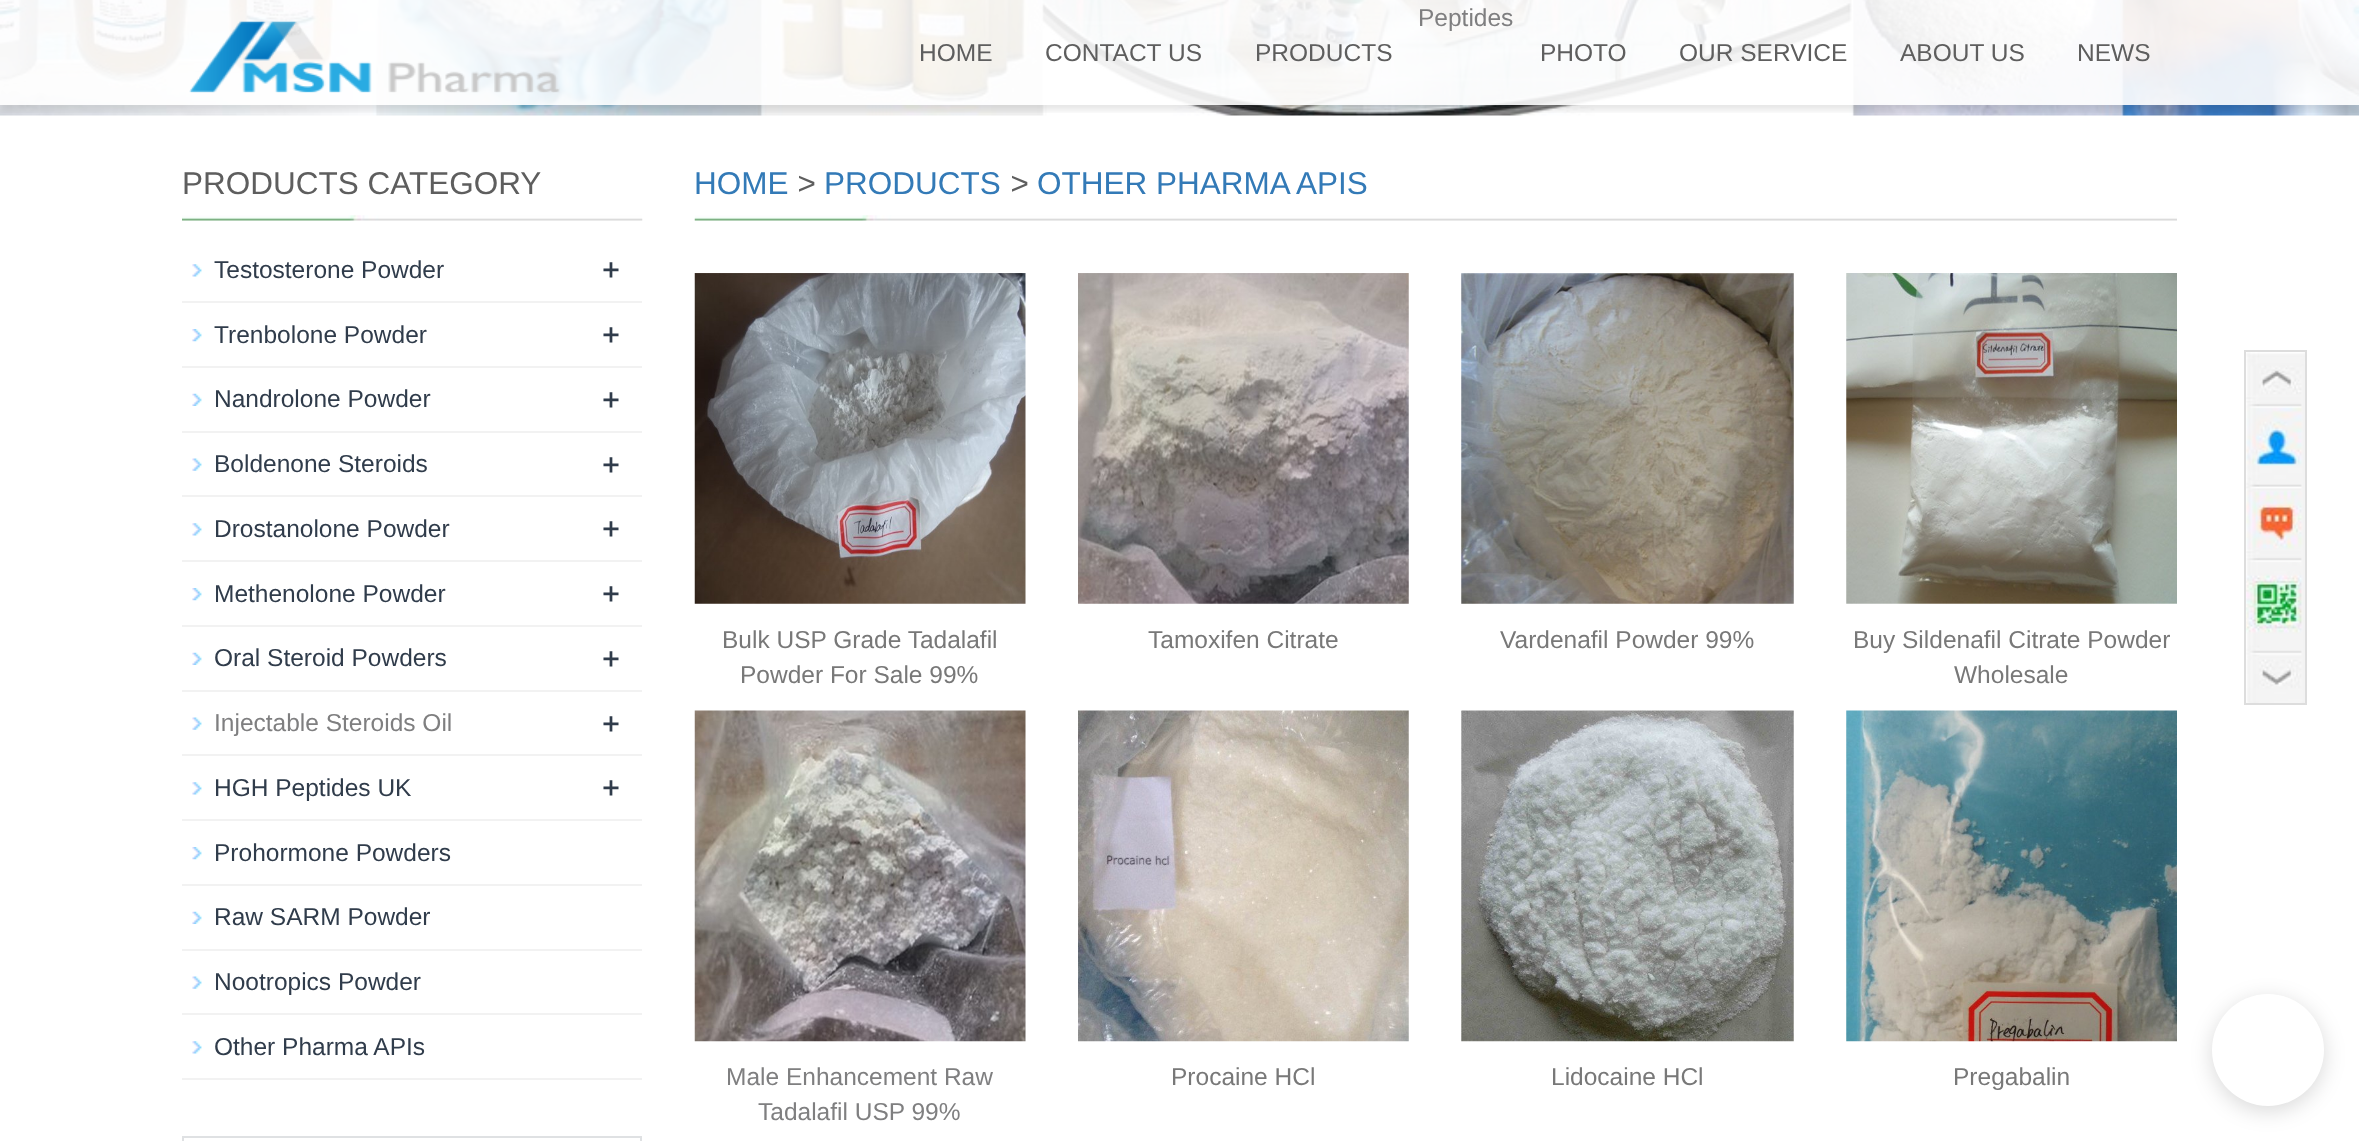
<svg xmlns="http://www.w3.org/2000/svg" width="2359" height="1141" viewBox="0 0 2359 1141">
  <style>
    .t1 { font: 24.5px Liberation Sans; fill: #7f7f80; }
    .t2 { font: 24.5px Liberation Sans; fill: #5e5e5e; }
    .t3 { font: 31.5px Liberation Sans; fill: #5e5e5e; }
    .t4 { font: 24.5px Liberation Sans; fill: #303c4b; }
    .t5 { font: 600 31.5px Open Sans; fill: #303c4b; }
    .t6 { font: 31.5px Liberation Sans; fill: #337ab7; }
    .t7 { font: italic 31.5px Liberation Sans; fill: #5e5e5e; }
    .t8 { font: 24.5px Liberation Sans; fill: #787878; }
  </style>
  <defs>
    <clipPath id="clip1"><rect x="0" y="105" width="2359" height="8"/></clipPath>
  </defs>
  <rect width="100%" height="100%" fill="#fff"/>
  <image x="0" y="0" width="2359" height="116" href="images/1.png"/>
  <g clip-path="url(#clip1)">
    <rect x="0" y="5" width="2359" height="105" fill="#0000001a" filter="blur(3.5px)"/>
  </g>
  <image x="189" y="21" width="371" height="72" href="images/2.png"/>
  <text x="1418" y="26" class="t1">Peptides</text>
  <text x="919" y="61" class="t2">HOME</text>
  <text x="1045" y="61" class="t2">CONTACT US</text>
  <text x="1255" y="61" class="t2">PRODUCTS</text>
  <text x="1540" y="61" class="t2">PHOTO</text>
  <text x="1679" y="61" class="t2">OUR SERVICE</text>
  <text x="1900" y="61" class="t2">ABOUT US</text>
  <text x="2077" y="61" class="t2">NEWS</text>
  <image x="182" y="215" width="461" height="6" href="images/3.png"/>
  <text x="182" y="194" class="t3">PRODUCTS CATEGORY</text>
  <image x="192" y="264" width="10" height="13" href="images/4.png"/>
  <rect x="182" y="301" width="460" height="2" fill="#f2f2f2"/>
  <text x="214" y="278" class="t4">Testosterone Powder</text>
  <text x="602" y="281" class="t5">+</text>
  <image x="192" y="329" width="10" height="13" href="images/5.png"/>
  <rect x="182" y="366" width="460" height="2" fill="#f2f2f2"/>
  <text x="214" y="343" class="t4">Trenbolone Powder</text>
  <text x="602" y="346" class="t5">+</text>
  <image x="192" y="393" width="10" height="13" href="images/6.png"/>
  <rect x="182" y="431" width="460" height="2" fill="#f2f2f2"/>
  <text x="214" y="407" class="t4">Nandrolone Powder</text>
  <text x="602" y="411" class="t5">+</text>
  <image x="192" y="458" width="10" height="13" href="images/7.png"/>
  <rect x="182" y="495" width="460" height="2" fill="#f2f2f2"/>
  <text x="214" y="472" class="t4">Boldenone Steroids</text>
  <text x="602" y="476" class="t5">+</text>
  <image x="192" y="523" width="10" height="13" href="images/4.png"/>
  <rect x="182" y="560" width="460" height="2" fill="#f2f2f2"/>
  <text x="214" y="537" class="t4">Drostanolone Powder</text>
  <text x="602" y="540" class="t5">+</text>
  <image x="192" y="588" width="10" height="13" href="images/5.png"/>
  <rect x="182" y="625" width="460" height="2" fill="#f2f2f2"/>
  <text x="214" y="602" class="t4">Methenolone Powder</text>
  <text x="602" y="605" class="t5">+</text>
  <image x="192" y="652" width="10" height="13" href="images/6.png"/>
  <rect x="182" y="690" width="460" height="2" fill="#f2f2f2"/>
  <text x="214" y="666" class="t4">Oral Steroid Powders</text>
  <text x="602" y="670" class="t5">+</text>
  <image x="192" y="717" width="10" height="13" href="images/7.png"/>
  <rect x="182" y="754" width="460" height="2" fill="#f2f2f2"/>
  <text x="214" y="731" class="t1">Injectable Steroids Oil</text>
  <text x="602" y="735" class="t5">+</text>
  <image x="192" y="782" width="10" height="13" href="images/4.png"/>
  <rect x="182" y="819" width="460" height="2" fill="#f2f2f2"/>
  <text x="214" y="796" class="t4">HGH Peptides UK</text>
  <text x="602" y="799" class="t5">+</text>
  <image x="192" y="847" width="10" height="13" href="images/5.png"/>
  <rect x="182" y="884" width="460" height="2" fill="#f2f2f2"/>
  <text x="214" y="861" class="t4">Prohormone Powders</text>
  <image x="192" y="911" width="10" height="13" href="images/6.png"/>
  <rect x="182" y="949" width="460" height="2" fill="#f2f2f2"/>
  <text x="214" y="925" class="t4">Raw SARM Powder</text>
  <image x="192" y="976" width="10" height="13" href="images/7.png"/>
  <rect x="182" y="1013" width="460" height="2" fill="#f2f2f2"/>
  <text x="214" y="990" class="t4">Nootropics Powder</text>
  <image x="192" y="1041" width="10" height="13" href="images/4.png"/>
  <rect x="182" y="1078" width="460" height="2" fill="#f2f2f2"/>
  <text x="214" y="1055" class="t4">Other Pharma APIs</text>
  <rect x="183" y="1137" width="458" height="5" fill="none" stroke="#dfe1e3" stroke-width="2"/>
  <image x="694" y="215" width="1483" height="6" href="images/8.png"/>
  <text x="694" y="194" class="t6">HOME</text>
  <text x="797" y="194" class="t7">&gt;</text>
  <text x="824" y="194" class="t6">PRODUCTS</text>
  <text x="1010" y="194" class="t7">&gt;</text>
  <text x="1037" y="194" class="t6">OTHER PHARMA APIS</text>
  <image x="694" y="273" width="332" height="331" href="images/9.png"/>
  <text x="722" y="648" class="t8">Bulk USP Grade Tadalafil</text>
  <text x="740" y="683" class="t8">Powder For Sale 99%</text>
  <image x="1078" y="273" width="331" height="331" href="images/10.png"/>
  <text x="1148" y="648" class="t8">Tamoxifen Citrate</text>
  <image x="1461" y="273" width="333" height="331" href="images/11.png"/>
  <text x="1500" y="648" class="t8">Vardenafil Powder 99%</text>
  <image x="1846" y="273" width="331" height="331" href="images/12.png"/>
  <text x="1853" y="648" class="t8">Buy Sildenafil Citrate Powder</text>
  <text x="1954" y="683" class="t8">Wholesale</text>
  <image x="694" y="710" width="332" height="332" href="images/13.png"/>
  <text x="726" y="1085" class="t1">Male Enhancement Raw</text>
  <text x="758" y="1120" class="t1">Tadalafil USP 99%</text>
  <image x="1078" y="710" width="331" height="332" href="images/14.png"/>
  <text x="1171" y="1085" class="t8">Procaine HCl</text>
  <image x="1461" y="710" width="333" height="332" href="images/15.png"/>
  <text x="1551" y="1085" class="t8">Lidocaine HCl</text>
  <image x="1846" y="710" width="331" height="332" href="images/16.png"/>
  <text x="1953" y="1085" class="t8">Pregabalin</text>
  <image x="2246" y="352" width="59" height="351" href="images/17.png"/>
  <rect x="2245" y="351" width="61" height="353" fill="none" stroke="#ddd" stroke-width="2"/>
  <rect x="2212" y="999" width="112" height="112" rx="56" fill="#00000026" filter="blur(10.5px)"/>
  <circle cx="2268" cy="1050" r="56" fill="#fff"/>
</svg>
